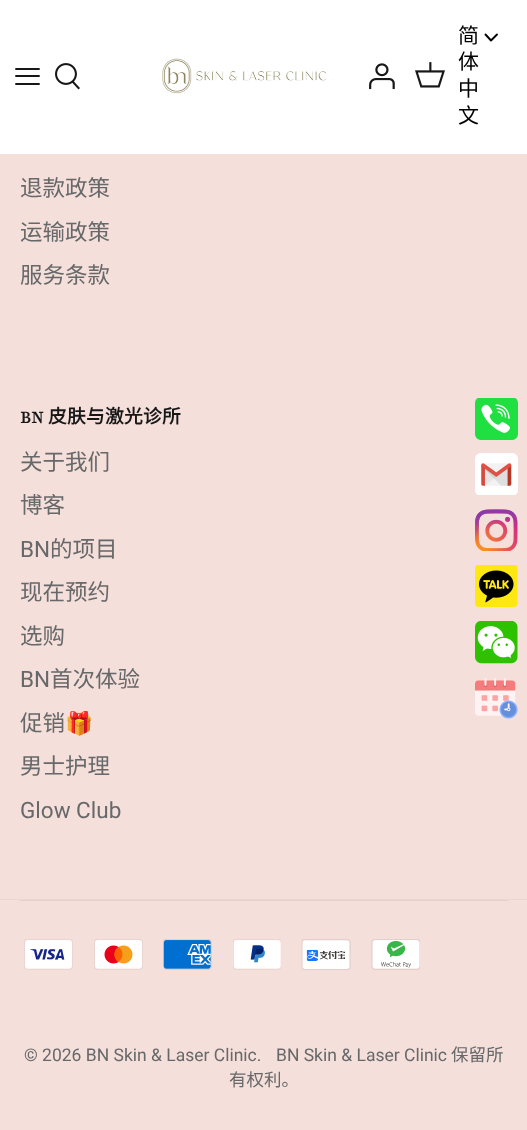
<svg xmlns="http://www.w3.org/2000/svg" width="527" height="1130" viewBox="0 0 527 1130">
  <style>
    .t1 { font: 21px Noto Sans CJK SC; fill: #000; }
    .t2 { font: 22.5px Noto Sans CJK SC; fill: #676869; }
    .t3 { font: bold 18.75px Playfair; letter-spacing: 0.25px; fill: #171717; }
    .t4 { font: bold 18.75px Noto Sans CJK SC; letter-spacing: 0.25px; fill: #171717; }
    .t5 { font: 22.5px Roboto; fill: #676869; }
    .t6 { font: 22.5px Noto Color Emoji; fill: #676869; }
    .t7 { font: 17.5px Roboto; fill: #676869; }
    .t8 { font: 17.5px Noto Sans CJK SC; fill: #676869; }
  </style>
  <rect width="100%" height="100%" fill="#f4dfdb"/>
  <rect x="0" y="0" width="527" height="154" fill="#fff"/>
  <path d="M16 76H39M16 69H39M16 84H39" fill="none" stroke="#171717" stroke-width="1.9" stroke-linecap="round" stroke-linejoin="round"/>
  <image x="55" y="63" width="25" height="27" href="images/1.png"/>
  <image x="162" y="58" width="164" height="36" href="images/2.png"/>
  <image x="369" y="63" width="26" height="27" href="images/3.png"/>
  <image x="415" y="62" width="30" height="26" href="images/4.png"/>
  <text x="458" y="43" class="t1">简</text>
  <path d="M485.5 34.5L491 40.5L497 34.5" fill="none" stroke="#000" stroke-width="1.9" stroke-linecap="round" stroke-linejoin="round"/>
  <text x="458" y="69" class="t1">体</text>
  <text x="458" y="96" class="t1">中</text>
  <text x="458" y="123" class="t1">文</text>
  <text x="20" y="196" class="t2">退款政策</text>
  <text x="20" y="240" class="t2">运输政策</text>
  <text x="20" y="283" class="t2">服务条款</text>
  <text x="20" y="423" class="t3">BN</text>
  <text x="48" y="423" class="t4">皮肤与激光诊所</text>
  <text x="20" y="470" class="t2">关于我们</text>
  <text x="20" y="513" class="t2">博客</text>
  <text x="20" y="557" class="t5">BN</text>
  <text x="50" y="557" class="t2">的项目</text>
  <text x="20" y="600" class="t2">现在预约</text>
  <text x="20" y="644" class="t2">选购</text>
  <text x="20" y="687" class="t5">BN</text>
  <text x="50" y="687" class="t2">首次体验</text>
  <text x="20" y="731" class="t2">促销</text>
  <text x="65" y="731" class="t6">🎁</text>
  <text x="20" y="774" class="t2">男士护理</text>
  <text x="20" y="818" class="t5">Glow Club</text>
  <rect x="0" y="899" width="527" height="1" fill="#ecd6d1"/>
  <rect x="20" y="900" width="488" height="1" fill="#e5d2ce"/>
  <image x="24" y="939" width="49" height="31" href="images/5.png"/>
  <image x="94" y="939" width="49" height="31" href="images/6.png"/>
  <image x="163" y="939" width="49" height="31" href="images/7.png"/>
  <image x="233" y="939" width="48" height="31" href="images/8.png"/>
  <image x="301" y="939" width="50" height="31" href="images/9.png"/>
  <image x="371" y="939" width="49" height="31" href="images/10.png"/>
  <text x="24" y="1061" class="t7">© 2026 BN Skin &amp; Laser Clinic.</text>
  <text x="276" y="1061" class="t7">BN Skin &amp; Laser Clinic</text>
  <text x="451" y="1061" class="t8">保留所</text>
  <text x="229" y="1086" class="t8">有权利。</text>
  <image x="475" y="398" width="43" height="42" href="images/11.png"/>
  <image x="475" y="453" width="43" height="42" href="images/12.png"/>
  <image x="475" y="509" width="43" height="42" href="images/13.png"/>
  <image x="475" y="565" width="43" height="42" href="images/14.png"/>
  <image x="475" y="621" width="43" height="43" href="images/15.png"/>
  <image x="475" y="678" width="43" height="41" href="images/16.png"/>
</svg>
